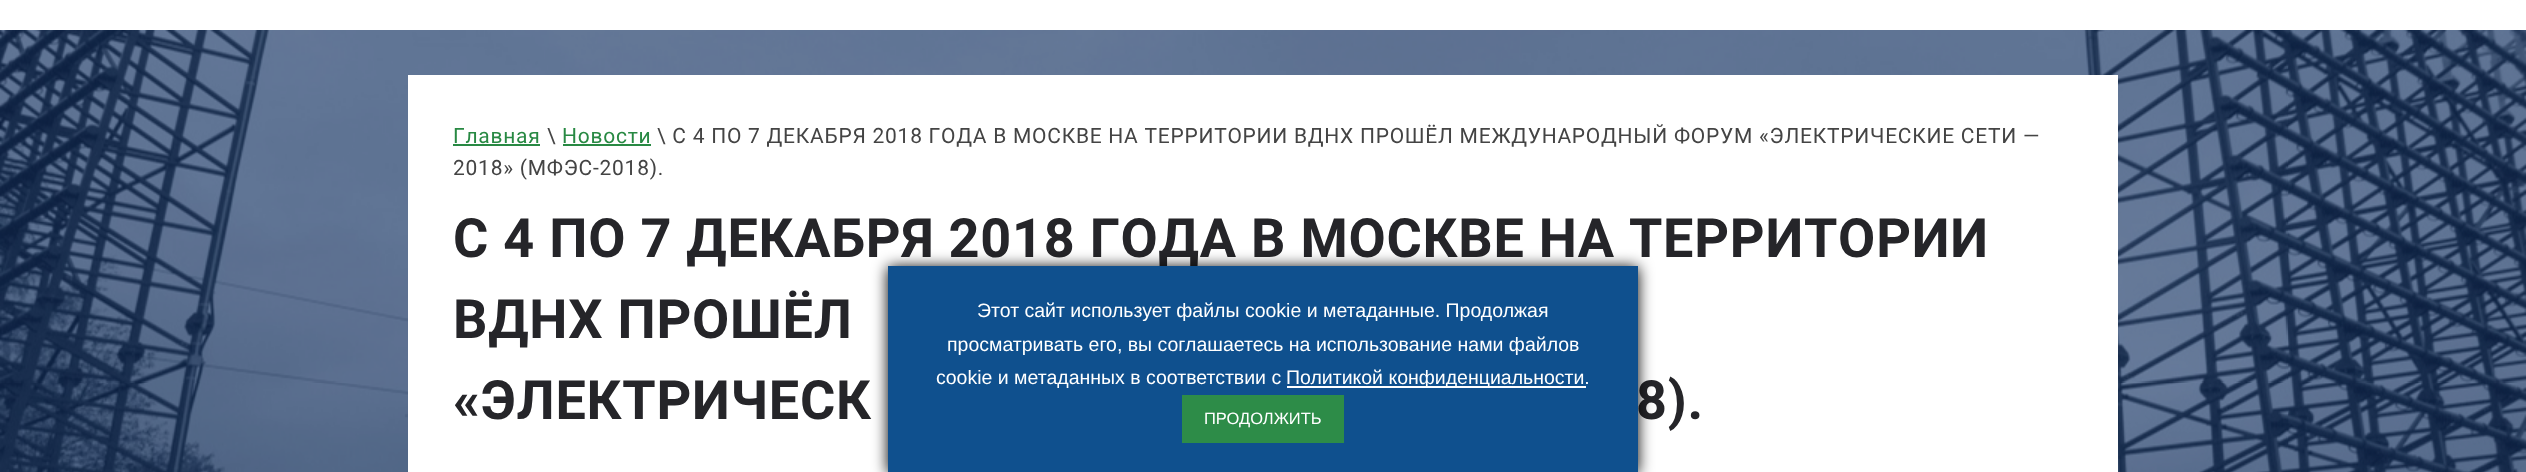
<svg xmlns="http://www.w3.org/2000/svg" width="2526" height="472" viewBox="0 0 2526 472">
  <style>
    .t1 { font: 21px Roboto; letter-spacing: 0.75px; fill: #288943; }
    .t2 { font: 21px Roboto; letter-spacing: 0.75px; fill: #444; }
    .t3 { font: bold 54px Roboto; letter-spacing: 0.75px; fill: #252529; }
    .t4 { font: 19.5px Liberation Sans; fill: #fff; }
    .t5 { font: 16.5px Liberation Sans; fill: #fff; }
  </style>
  <rect width="100%" height="100%" fill="#fff"/>
  <image x="0" y="30" width="2526" height="442" href="images/1.png"/>
  <rect x="408" y="75" width="1710" height="397" fill="#fff"/>
  <text x="453" y="143" class="t1">Главная</text>
  <rect x="453" y="144" width="87" height="2" fill="#288943"/>
  <text x="547" y="143" class="t2">\</text>
  <text x="562" y="143" class="t1">Новости</text>
  <rect x="563" y="144" width="88" height="2" fill="#288943"/>
  <text x="657" y="143" class="t2">\ С 4 ПО 7 ДЕКАБРЯ 2018 ГОДА В МОСКВЕ НА ТЕРРИТОРИИ ВДНХ ПРОШЁЛ МЕЖДУНАРОДНЫЙ ФОРУМ «ЭЛЕКТРИЧЕСКИЕ СЕТИ —</text>
  <text x="453" y="175" class="t2">2018» (МФЭС-2018).</text>
  <text x="453" y="257" class="t3">С 4 ПО 7 ДЕКАБРЯ 2018 ГОДА В МОСКВЕ НА ТЕРРИТОРИИ</text>
  <text x="453" y="338" class="t3">ВДНХ ПРОШЁЛ</text>
  <text x="453" y="419" class="t3">«ЭЛЕКТРИЧЕСК</text>
  <text x="1636" y="419" class="t3">8).</text>
  <rect x="888" y="267" width="750" height="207" fill="#000" filter="blur(7.5px)"/>
  <rect x="888" y="266" width="750" height="206" fill="#0f508e"/>
  <text x="977" y="317" class="t4">Этот сайт использует файлы cookie и метаданные. Продолжая</text>
  <text x="947" y="351" class="t4">просматривать его, вы соглашаетесь на использование нами файлов</text>
  <text x="936" y="384" class="t4">cookie и метаданных в соответствии с</text>
  <rect x="1287" y="386" width="299" height="2" fill="#fff"/>
  <text x="1286" y="384" class="t4">Политикой конфиденциальности.</text>
  <rect x="1182" y="395" width="162" height="48" fill="#2d8c48"/>
  <text x="1204" y="424" class="t5">ПРОДОЛЖИТЬ</text>
</svg>
